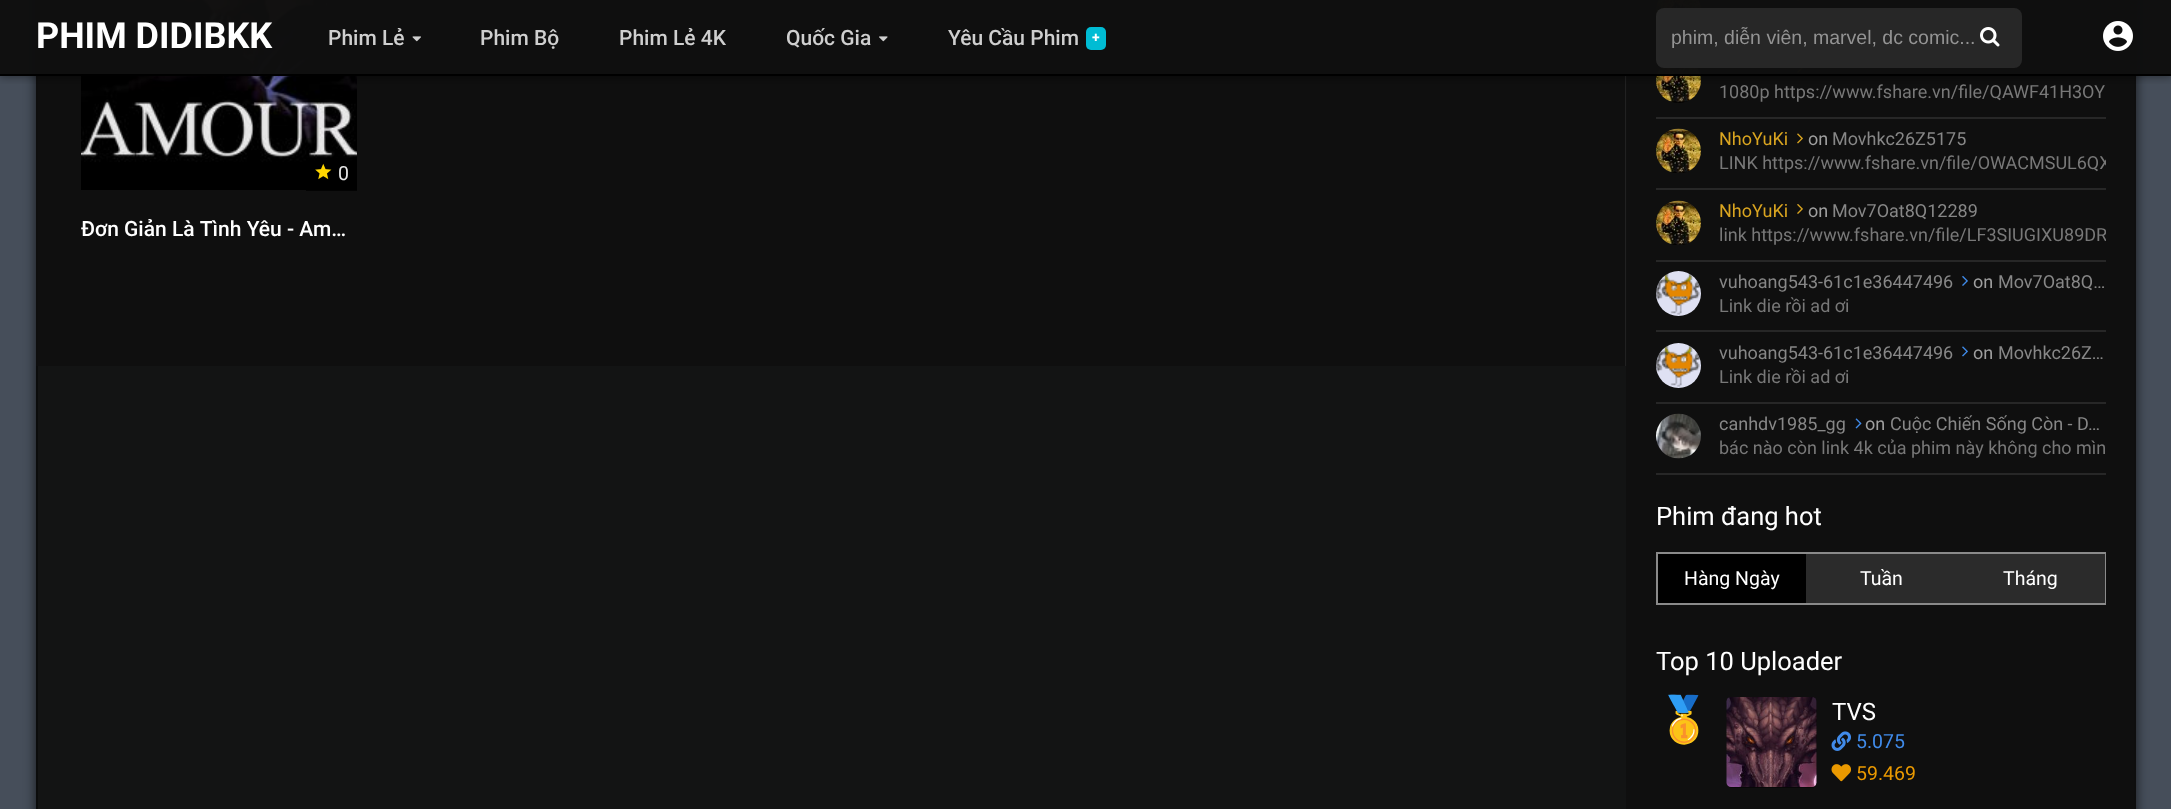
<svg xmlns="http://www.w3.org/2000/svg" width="2171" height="809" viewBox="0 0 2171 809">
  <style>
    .t1 { font: bold 36px Roboto; fill: #fff; }
    .t2 { font: 500 21px Roboto; fill: #cfcfcf; }
    .t3 { font: bold 14px Roboto; fill: #fff; }
    .t4 { font: 19.5px Liberation Sans; fill: #939393; }
    .t5 { font: 19.5px Roboto; fill: #e6e6e6; }
    .t6 { font: 500 21px Roboto; fill: #fff; }
    .t7 { font: 18px Roboto; fill: #787878; }
    .t8 { font: 18px Roboto; fill: #daa520; }
    .t9 { font: 18px Roboto; fill: #9f9f9f; }
    .t10 { font: 18px Roboto; fill: #878787; }
    .t11 { font: 25.5px Roboto; fill: #fff; }
    .t12 { font: 19.5px Roboto; fill: #fff; }
    .t13 { font: 45px Noto Color Emoji; fill: #408bea; }
    .t14 { font: 24px Roboto; fill: #fff; }
    .t15 { font: 19.5px Roboto; fill: #408bea; }
    .t16 { font: 19.5px Roboto; fill: #ea9900; }
  </style>
  <defs>
    <clipPath id="clip1"><rect x="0" y="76" width="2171" height="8"/></clipPath>
    <clipPath id="clip2"><rect x="1656" y="119" width="450" height="69"/></clipPath>
    <clipPath id="clip3"><rect x="1656" y="189" width="450" height="71"/></clipPath>
  </defs>
  <rect width="100%" height="100%" fill="#464e5a"/>
  <rect x="36" y="-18" width="2100" height="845" fill="#000000b3" filter="blur(6px)"/>
  <rect x="37" y="-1" width="2098" height="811" fill="#131414" stroke="#0b0c0c" stroke-width="2"/>
  <rect x="36" y="0" width="1590" height="366" fill="#0f0f0fed"/>
  <rect x="1625" y="0" width="2" height="366" fill="#ffffff14"/>
  <image x="81" y="0" width="276" height="190" href="images/5.png"/>
  <rect x="1626" y="0" width="510" height="809" fill="#0f0f0fed"/>
  <rect x="2022" y="47" width="84" height="2" fill="#272727"/>
  <image x="1656" y="0" width="45" height="16" href="images/7.png"/>
  <image x="1797" y="0" width="2" height="1" href="images/8.png"/>
  <image x="1656" y="66" width="45" height="37" href="images/9.png"/>
  <image x="1797" y="68" width="6" height="5" href="images/10.png"/>
  <g clip-path="url(#clip1)">
    <rect x="0" y="2" width="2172" height="75" fill="#00000066" filter="blur(4px)"/>
  </g>
  <rect x="0" y="0" width="2171" height="74" fill="#0f0f0ffc"/>
  <rect x="0" y="74" width="2171" height="2" fill="#000"/>
  <text x="36" y="48" class="t1">PHIM DIDIBKK</text>
  <text x="328" y="45" class="t2">Phim Lẻ</text>
  <image x="412" y="36" width="9" height="6" href="images/1.png"/>
  <text x="480" y="45" class="t2">Phim Bộ</text>
  <text x="619" y="45" class="t2">Phim Lẻ 4K</text>
  <text x="786" y="45" class="t2">Quốc Gia</text>
  <image x="879" y="36" width="9" height="6" href="images/2.png"/>
  <text x="948" y="45" class="t2">Yêu Cầu Phim</text>
  <rect x="1086" y="27" width="20" height="23" rx="5" fill="#00bcd4"/>
  <text x="1092" y="42" class="t3">+</text>
  <rect x="1656" y="8" width="366" height="60" rx="8" fill="#272727"/>
  <text x="1671" y="44" class="t4">phim, diễn viên, marvel, dc comic...</text>
  <image x="1980" y="27" width="20" height="20" href="images/3.png"/>
  <image x="2103" y="21" width="30" height="30" href="images/4.png"/>
  <rect x="306" y="158" width="51" height="33" fill="#000000cc"/>
  <image x="315" y="163" width="17" height="17" href="images/6.png"/>
  <text x="338" y="180" class="t5">0</text>
  <text x="81" y="236" class="t6">Đơn Giản Là Tình Yêu - Am…</text>
  <rect x="1656" y="117" width="450" height="2" fill="#272727"/>
  <text x="1719" y="98" class="t7">1080p https://www.fshare.vn/file/QAWF41H3OY</text>
  <rect x="1656" y="188" width="450" height="2" fill="#272727"/>
  <image x="1656" y="128" width="45" height="45" href="images/11.png"/>
  <text x="1719" y="145" class="t8">NhoYuKi</text>
  <image x="1797" y="133" width="6" height="11" href="images/12.png"/>
  <text x="1808" y="145" class="t9">on</text>
  <text x="1832" y="145" class="t10">Movhkc26Z5175</text>
  <g clip-path="url(#clip2)">
    <text x="1719" y="169" class="t7">LINK https://www.fshare.vn/file/OWACMSUL6QX</text>
  </g>
  <rect x="1656" y="260" width="450" height="2" fill="#272727"/>
  <image x="1656" y="200" width="45" height="45" href="images/13.png"/>
  <text x="1719" y="217" class="t8">NhoYuKi</text>
  <image x="1797" y="204" width="6" height="10" href="images/14.png"/>
  <text x="1808" y="217" class="t9">on</text>
  <text x="1832" y="217" class="t10">Mov7Oat8Q12289</text>
  <g clip-path="url(#clip3)">
    <text x="1719" y="241" class="t7">link https://www.fshare.vn/file/LF3SIUGIXU89DR</text>
  </g>
  <rect x="1656" y="330" width="450" height="2" fill="#272727"/>
  <image x="1656" y="271" width="45" height="45" href="images/15.png"/>
  <text x="1719" y="288" class="t10">vuhoang543-61c1e36447496</text>
  <image x="1962" y="276" width="6" height="10" href="images/16.png"/>
  <text x="1973" y="288" class="t9">on</text>
  <text x="1998" y="288" class="t10">Mov7Oat8Q…</text>
  <text x="1719" y="312" class="t7">Link die rồi ad ơi</text>
  <rect x="1656" y="402" width="450" height="2" fill="#272727"/>
  <image x="1656" y="343" width="45" height="45" href="images/17.png"/>
  <text x="1719" y="359" class="t10">vuhoang543-61c1e36447496</text>
  <image x="1962" y="346" width="6" height="11" href="images/18.png"/>
  <text x="1973" y="359" class="t9">on</text>
  <text x="1998" y="359" class="t10">Movhkc26Z…</text>
  <text x="1719" y="383" class="t7">Link die rồi ad ơi</text>
  <rect x="1656" y="473" width="450" height="2" fill="#272727"/>
  <image x="1656" y="413" width="45" height="46" href="images/19.png"/>
  <text x="1719" y="430" class="t10">canhdv1985_gg</text>
  <image x="1855" y="418" width="7" height="11" href="images/20.png"/>
  <text x="1865" y="430" class="t9">on</text>
  <text x="1890" y="430" class="t10">Cuộc Chiến Sống Còn - D…</text>
  <text x="1719" y="454" class="t7">bác nào còn link 4k của phim này không cho mìn</text>
  <text x="1656" y="525" class="t11">Phim đang hot</text>
  <rect x="1806" y="554" width="150" height="49" fill="#2b2b2b"/>
  <rect x="1657" y="553" width="448" height="51" fill="none" stroke="#8a8a8a" stroke-width="2"/>
  <rect x="1658" y="554" width="148" height="49" fill="#000"/>
  <text x="1684" y="585" class="t12">Hàng Ngày</text>
  <text x="1860" y="585" class="t12">Tuần</text>
  <rect x="1956" y="554" width="149" height="49" fill="#2b2b2b"/>
  <text x="2003" y="585" class="t12">Tháng</text>
  <text x="1656" y="670" class="t11">Top 10 Uploader</text>
  <text x="1656" y="735" class="t13">🥇</text>
  <rect x="1727" y="698" width="90" height="90" rx="5" fill="#080808"/>
  <image x="1726" y="697" width="91" height="90" href="images/21.png"/>
  <text x="1832" y="720" class="t14">TVS</text>
  <image x="1831" y="731" width="20" height="20" href="images/22.png"/>
  <text x="1856" y="748" class="t15">5.075</text>
  <image x="1831" y="764" width="20" height="18" href="images/23.png"/>
  <text x="1856" y="780" class="t16">59.469</text>
</svg>
